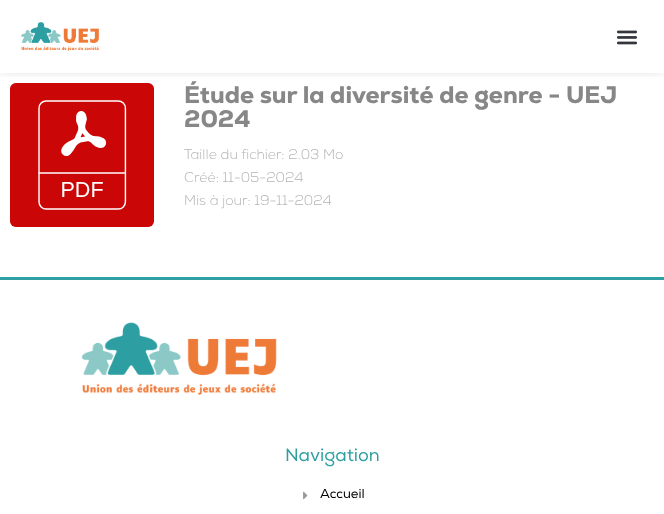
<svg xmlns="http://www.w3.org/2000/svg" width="664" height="514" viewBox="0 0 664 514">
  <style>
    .t1 { font: 900 24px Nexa; fill: #878787; }
    .t2 { font: 300 14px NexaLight; fill: #b3b3b3; }
    .t3 { font: 18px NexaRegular; fill: #2e9fa2; }
    .t4 { font: 13px NexaRegular; fill: #000; }
  </style>
  <defs>
    <clipPath id="clip1"><rect x="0" y="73" width="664" height="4"/></clipPath>
  </defs>
  <rect width="100%" height="100%" fill="#fff"/>
  <image x="10" y="83" width="144" height="144" href="images/3.png"/>
  <g clip-path="url(#clip1)">
    <rect x="0" y="0" width="664" height="73" fill="#0000001a" filter="blur(5px)"/>
  </g>
  <image x="21" y="22" width="79" height="29" href="images/1.png"/>
  <image x="616" y="30" width="22" height="15" href="images/2.png"/>
  <text x="184" y="103" class="t1">Étude sur la diversité de genre - UEJ</text>
  <text x="184" y="127" class="t1">2024</text>
  <text x="184" y="159" class="t2">Taille du fichier: 2.03 Mo</text>
  <text x="184" y="182" class="t2">Créé: 11-05-2024</text>
  <text x="184" y="205" class="t2">Mis à jour: 19-11-2024</text>
  <rect x="0" y="277" width="664" height="3" fill="#2e9fa2"/>
  <image x="81" y="322" width="196" height="73" href="images/4.png"/>
  <text x="285" y="461" class="t3">Navigation</text>
  <image x="303" y="491" width="5" height="9" href="images/5.png"/>
  <text x="320" y="498" class="t4">Accueil</text>
</svg>
